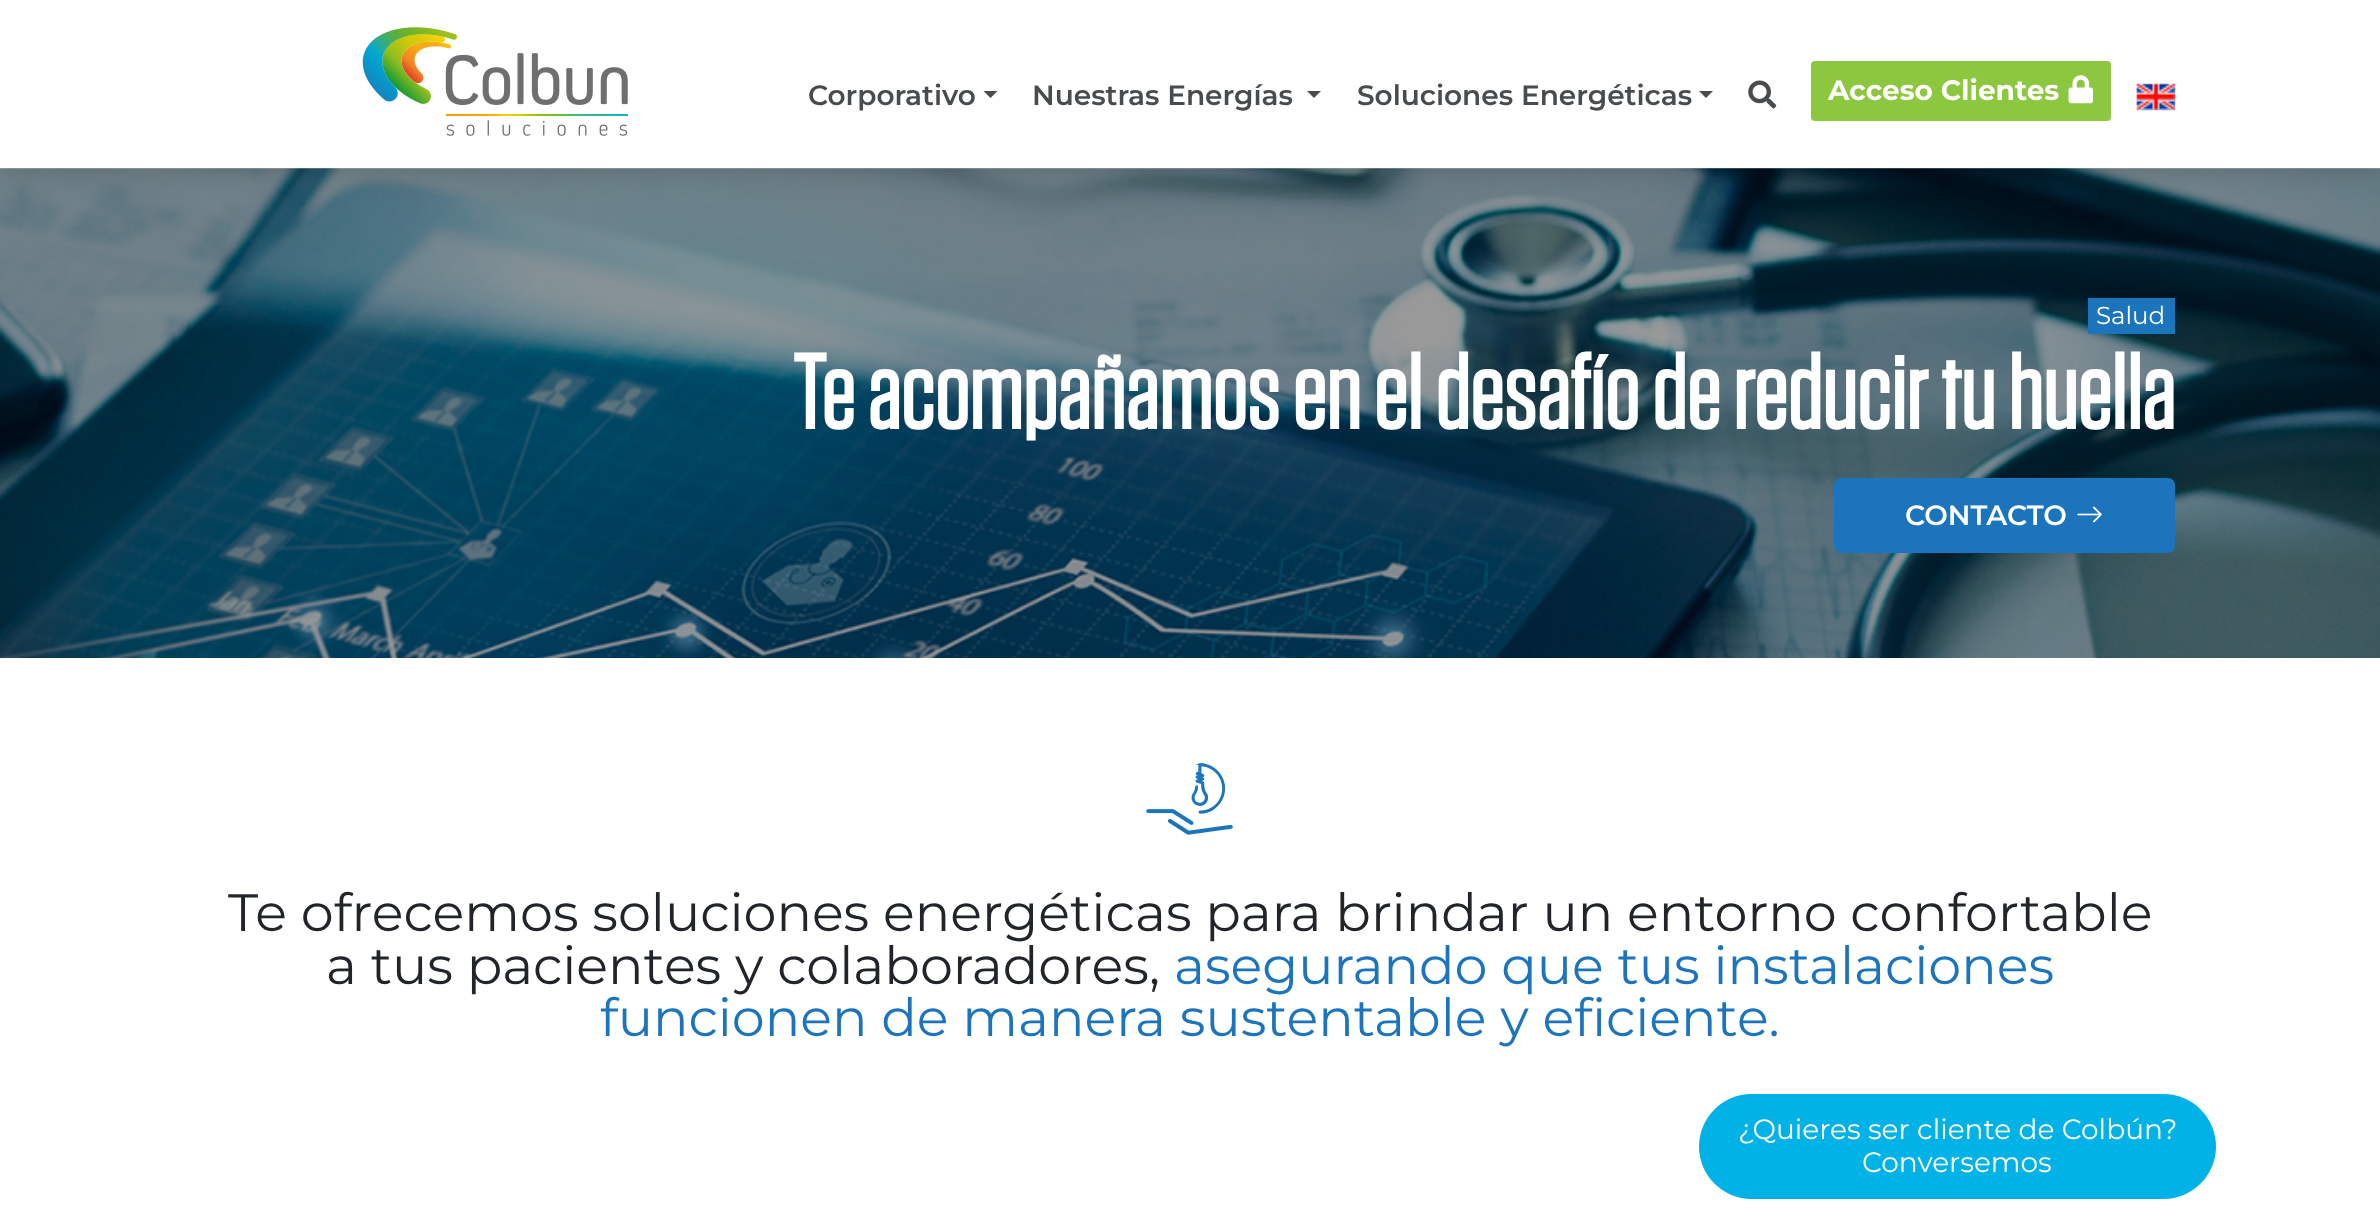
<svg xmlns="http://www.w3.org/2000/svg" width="2380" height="1220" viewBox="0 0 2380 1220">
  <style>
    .t1 { font: 600 28px Montserrat; fill: #494c4e; }
    .t2 { font: bold 28px Montserrat; fill: #fff; }
    .t3 { font: 24.5px Montserrat; fill: #fff; }
    .t4 { font: bold 105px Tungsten; fill: #fff; }
    .t5 { font: 600 28px Montserrat; fill: #fff; }
    .t6 { font: 52.5px Montserrat; fill: #212529; }
    .t7 { font: 52.5px Montserrat; fill: #1c75bc; }
    .t8 { font: 28px Montserrat; fill: #fff; }
  </style>
  <rect width="100%" height="100%" fill="#fff"/>
  <image x="0" y="168" width="2380" height="490" href="images/5.png"/>
  <rect x="0" y="0" width="2380" height="168" fill="#00000033" filter="blur(15px)"/>
  <rect x="0" y="0" width="2380" height="168" fill="#fff"/>
  <rect x="0" y="168" width="2380" height="1" fill="#ffffff33"/>
  <image x="362" y="27" width="266" height="109" href="images/1.png"/>
  <text x="808" y="105" class="t1">Corporativo</text>
  <path d="M983.5 91H997.5L990.5 98Z" fill="#494c4e"/>
  <text x="1032" y="105" class="t1">Nuestras Energías</text>
  <path d="M1307 91H1321L1314 98Z" fill="#494c4e"/>
  <text x="1357" y="105" class="t1">Soluciones Energéticas</text>
  <path d="M1699 91H1713L1706 98Z" fill="#494c4e"/>
  <image x="1748" y="80" width="29" height="29" href="images/2.png"/>
  <rect x="1811" y="61" width="300" height="60" rx="4" fill="#8dc63f"/>
  <text x="1828" y="100" class="t2">Acceso Clientes</text>
  <image x="2068" y="75" width="25" height="29" href="images/3.png"/>
  <image x="2136" y="83" width="40" height="28" href="images/4.png"/>
  <rect x="2088" y="298" width="87" height="36" fill="#1c75bc"/>
  <text x="2096" y="324" class="t3">Salud</text>
  <text x="793" y="429" class="t4">Te acompañamos en el desafío de reducir tu huella</text>
  <rect x="1834" y="478" width="341" height="75" rx="7" fill="#1c75bc"/>
  <text x="1905" y="525" class="t5">CONTACTO</text>
  <image x="2077" y="506" width="25" height="17" href="images/6.png"/>
  <image x="1146" y="763" width="87" height="72" href="images/7.png"/>
  <text x="228" y="931" class="t6">Te ofrecemos soluciones energéticas para brindar un entorno confortable</text>
  <text x="326" y="984" class="t6">a tus pacientes y colaboradores,</text>
  <text x="1174" y="984" class="t7">asegurando que tus instalaciones</text>
  <text x="600" y="1036" class="t7">funcionen de manera sustentable y eficiente.</text>
  <rect x="1699" y="1094" width="517" height="105" rx="52.5" fill="#00b2e6"/>
  <text x="1738" y="1139" class="t8">¿Quieres ser cliente de Colbún?</text>
  <text x="1862" y="1172" class="t8">Conversemos</text>
</svg>
